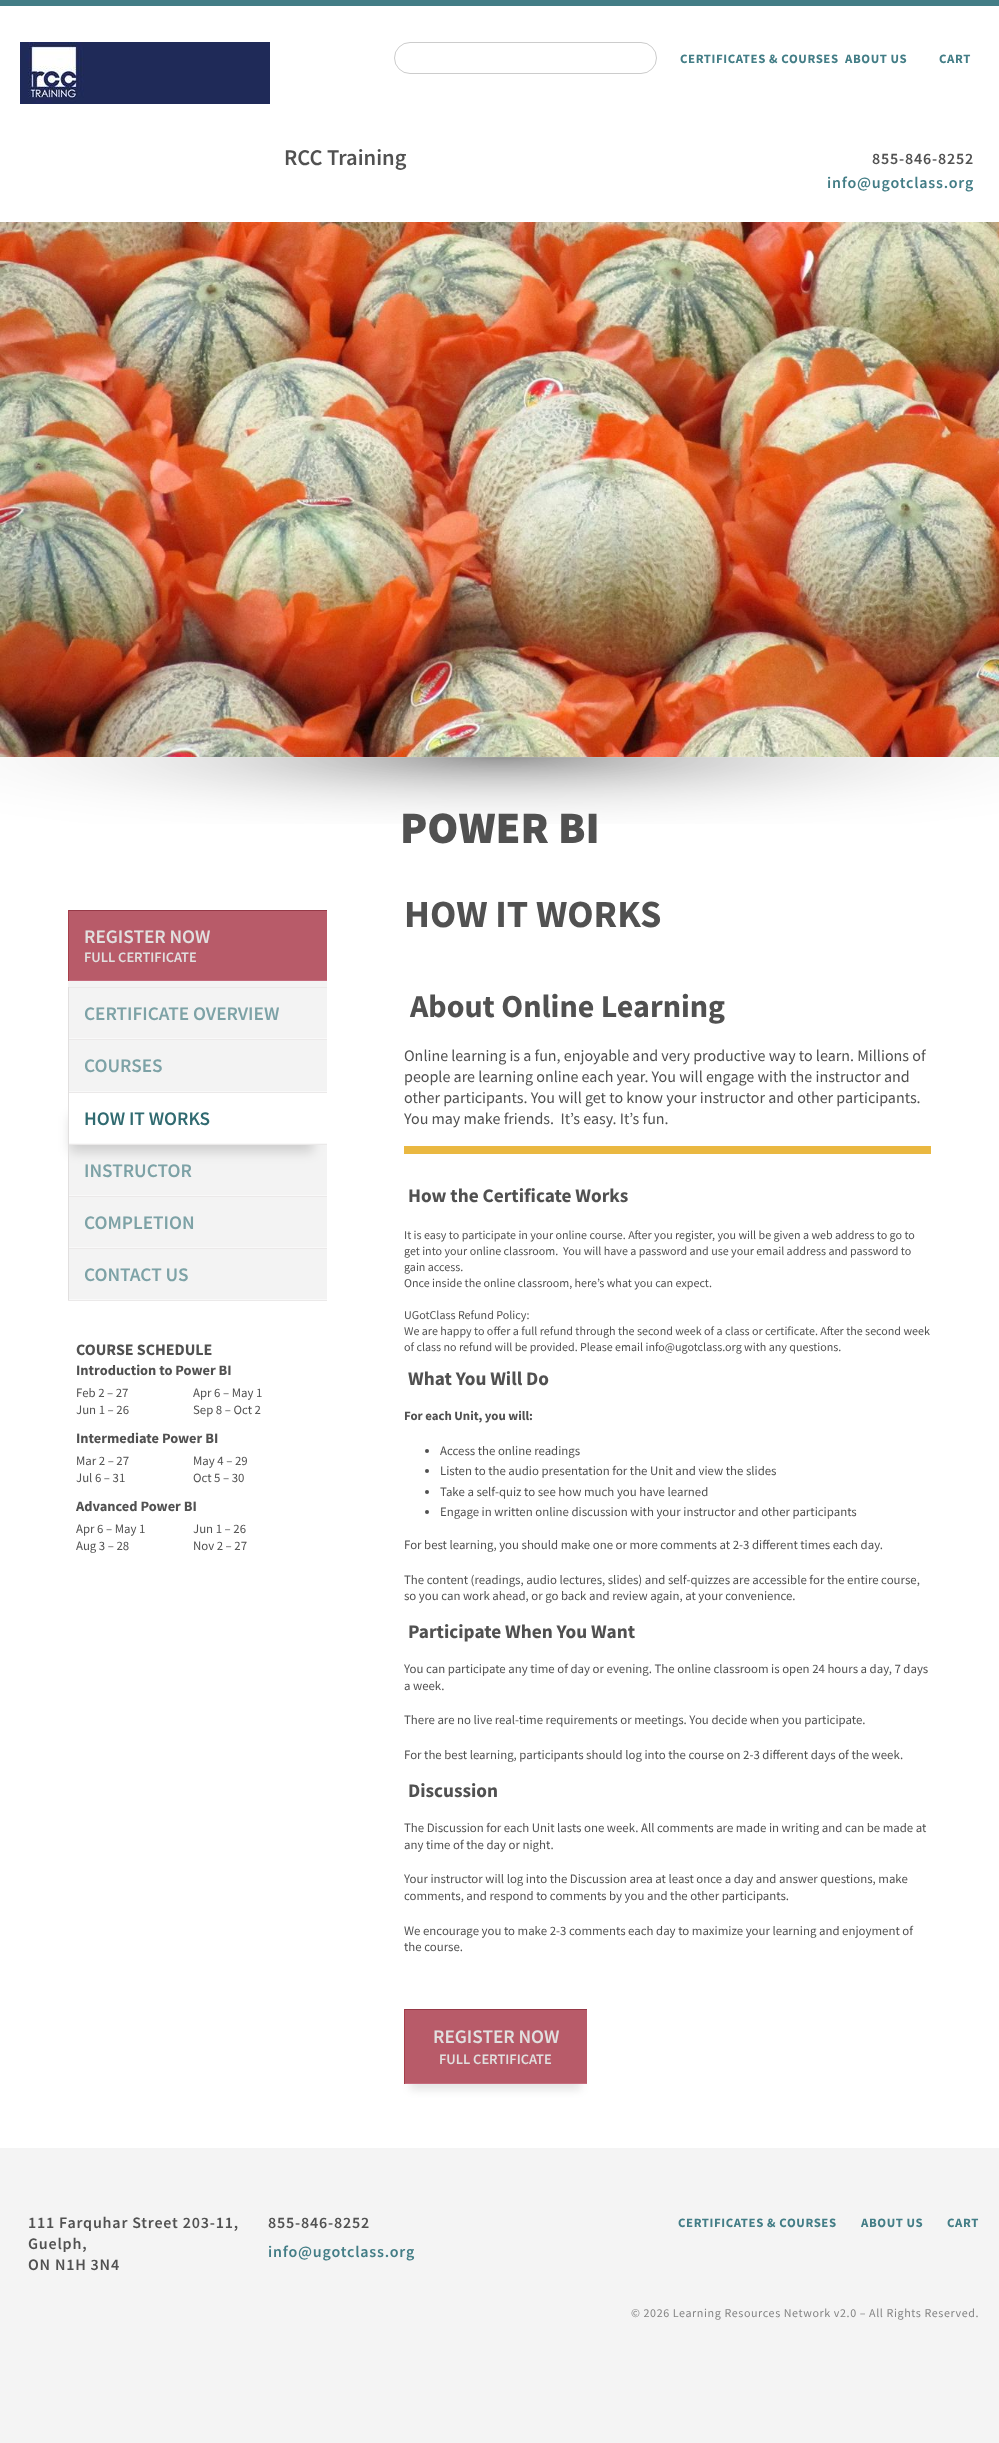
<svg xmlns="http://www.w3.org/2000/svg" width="999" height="2443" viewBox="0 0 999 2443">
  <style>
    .t1 { font: bold 12.8px Source Sans Pro; letter-spacing: 0.6px; fill: #437d86; }
    .t2 { font: 600 22.5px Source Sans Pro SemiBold; fill: #515151; }
    .t3 { font: 600 16px Source Sans Pro SemiBold; letter-spacing: 0.8px; fill: #515151; }
    .t4 { font: 600 16px Source Sans Pro SemiBold; letter-spacing: 0.8px; fill: #437d86; }
    .t5 { font: 900 45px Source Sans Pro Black; fill: #515151; }
    .t6 { font: 600 19.25px Source Sans Pro SemiBold; fill: #e1dfdf; }
    .t7 { font: 600 14.4px Source Sans Pro SemiBold; fill: #e1dfdf; }
    .t8 { font: 600 19.25px Source Sans Pro SemiBold; fill: #7da2a6; }
    .t9 { font: 600 19.25px Source Sans Pro SemiBold; fill: #306a70; }
    .t10 { font: bold 16px Source Sans Pro; fill: #515151; }
    .t11 { font: bold 14.4px Source Sans Pro; fill: #515151; }
    .t12 { font: 12.8px Source Sans Pro; fill: #515151; }
    .t13 { font: bold 38.5px Source Sans Pro; fill: #515151; }
    .t14 { font: bold 32px Source Sans Pro; fill: #515151; }
    .t15 { font: 16px Source Sans Pro; fill: #515151; }
    .t16 { font: bold 19.25px Source Sans Pro; fill: #515151; }
    .t17 { font: 12px Source Sans Pro; fill: #515151; }
    .t18 { font: bold 12.8px Source Sans Pro; fill: #515151; }
    .t19 { font: 12px Source Sans Pro; letter-spacing: 0.6px; fill: #848484; }
  </style>
  <rect width="100%" height="100%" fill="#fff"/>
  <rect x="0" y="0" width="999" height="6" fill="#437d86"/>
  <rect x="394.5" y="42.5" width="262" height="31" rx="15.5" fill="none" stroke="#ccc"/>
  <text x="680" y="63" class="t1">CERTIFICATES &amp; COURSES</text>
  <text x="845" y="63" class="t1">ABOUT US</text>
  <text x="939" y="63" class="t1">CART</text>
  <image x="20" y="42" width="250" height="62" href="images/1.png"/>
  <text x="284" y="165" class="t2">RCC Training</text>
  <text x="872" y="164" class="t3">855-846-8252</text>
  <text x="827" y="188" class="t4">info@ugotclass.org</text>
  <image x="0" y="222" width="999" height="535" href="images/2.png"/>
  <image x="0" y="757" width="999" height="67" href="images/3.png"/>
  <text x="400" y="843" class="t5">POWER BI</text>
  <rect x="68" y="981" width="259" height="318" fill="#f3f3f3"/>
  <rect x="69" y="911" width="258" height="69" fill="#b85b69"/>
  <rect x="68" y="910" width="259" height="1" fill="#963947"/>
  <rect x="68" y="980" width="259" height="1" fill="#c56b7d"/>
  <rect x="68" y="910" width="1" height="71" fill="#a63f4a"/>
  <text x="84" y="943" class="t6">REGISTER NOW</text>
  <text x="84" y="962" class="t7">FULL CERTIFICATE</text>
  <rect x="68" y="987" width="259" height="1" fill="#ebe9e9"/>
  <rect x="68" y="1038" width="259" height="1" fill="#f9f9f9"/>
  <rect x="68" y="987" width="1" height="52" fill="#e1dfdf"/>
  <text x="84" y="1020" class="t8">CERTIFICATE OVERVIEW</text>
  <rect x="68" y="1039" width="259" height="1" fill="#ebe9e9"/>
  <rect x="68" y="1091" width="259" height="1" fill="#f9f9f9"/>
  <rect x="68" y="1039" width="1" height="53" fill="#e1dfdf"/>
  <text x="84" y="1072" class="t8">COURSES</text>
  <rect x="70" y="1116" width="243" height="36" fill="#00000026" filter="blur(6px)"/>
  <rect x="69" y="1093" width="258" height="50" fill="#fff"/>
  <rect x="68" y="1092" width="259" height="1" fill="#ebe9e9"/>
  <rect x="68" y="1143" width="259" height="1" fill="#f9f9f9"/>
  <rect x="68" y="1092" width="1" height="52" fill="#e1dfdf"/>
  <text x="84" y="1125" class="t9">HOW IT WORKS</text>
  <rect x="68" y="1144" width="259" height="1" fill="#ebe9e9"/>
  <rect x="68" y="1195" width="259" height="1" fill="#f9f9f9"/>
  <rect x="68" y="1144" width="1" height="52" fill="#e1dfdf"/>
  <text x="84" y="1177" class="t8">INSTRUCTOR</text>
  <rect x="68" y="1196" width="259" height="1" fill="#ebe9e9"/>
  <rect x="68" y="1247" width="259" height="1" fill="#f9f9f9"/>
  <rect x="68" y="1196" width="1" height="52" fill="#e1dfdf"/>
  <text x="84" y="1229" class="t8">COMPLETION</text>
  <rect x="68" y="1300" width="259" height="1" fill="#ebe9e9"/>
  <rect x="68" y="1248" width="259" height="1" fill="#ebe9e9"/>
  <rect x="68" y="1299" width="259" height="1" fill="#f9f9f9"/>
  <rect x="68" y="1248" width="1" height="52" fill="#e1dfdf"/>
  <text x="84" y="1281" class="t8">CONTACT US</text>
  <text x="76" y="1355" class="t10">COURSE SCHEDULE</text>
  <text x="76" y="1375" class="t11">Introduction to Power BI</text>
  <text x="76" y="1397" class="t12">Feb 2 – 27</text>
  <text x="193" y="1397" class="t12">Apr 6 – May 1</text>
  <text x="76" y="1414" class="t12">Jun 1 – 26</text>
  <text x="193" y="1414" class="t12">Sep 8 – Oct 2</text>
  <text x="76" y="1443" class="t11">Intermediate Power BI</text>
  <text x="76" y="1465" class="t12">Mar 2 – 27</text>
  <text x="193" y="1465" class="t12">May 4 – 29</text>
  <text x="76" y="1482" class="t12">Jul 6 – 31</text>
  <text x="193" y="1482" class="t12">Oct 5 – 30</text>
  <text x="76" y="1511" class="t11">Advanced Power BI</text>
  <text x="76" y="1533" class="t12">Apr 6 – May 1</text>
  <text x="193" y="1533" class="t12">Jun 1 – 26</text>
  <text x="76" y="1550" class="t12">Aug 3 – 28</text>
  <text x="193" y="1550" class="t12">Nov 2 – 27</text>
  <text x="404" y="927" class="t13">HOW IT WORKS</text>
  <text x="410" y="1017" class="t14">About Online Learning</text>
  <text x="404" y="1061" class="t15">Online learning is a fun, enjoyable and very productive way to learn. Millions of</text>
  <text x="404" y="1082" class="t15">people are learning online each year. You will engage with the instructor and</text>
  <text x="404" y="1103" class="t15">other participants. You will get to know your instructor and other participants.</text>
  <text x="404" y="1124" class="t15" xml:space="preserve">You may make friends.  It’s easy. It’s fun.</text>
  <rect x="404" y="1146" width="527" height="8" fill="#eab841"/>
  <text x="408" y="1202" class="t16">How the Certificate Works</text>
  <text x="404" y="1239" class="t17">It is easy to participate in your online course. After you register, you will be given a web address to go to</text>
  <text x="404" y="1255" class="t17" xml:space="preserve">get into your online classroom.  You will have a password and use your email address and password to</text>
  <text x="404" y="1271" class="t17">gain access.</text>
  <text x="404" y="1287" class="t17">Once inside the online classroom, here’s what you can expect.</text>
  <text x="404" y="1319" class="t17">UGotClass Refund Policy:</text>
  <text x="404" y="1335" class="t17">We are happy to offer a full refund through the second week of a class or certificate. After the second week</text>
  <text x="404" y="1351" class="t17">of class no refund will be provided. Please email info@ugotclass.org with any questions.</text>
  <text x="408" y="1385" class="t16">What You Will Do</text>
  <text x="404" y="1420" class="t18">For each Unit, you will:</text>
  <circle cx="427" cy="1451" r="2" fill="#515151"/>
  <text x="440" y="1455" class="t12">Access the online readings</text>
  <circle cx="427" cy="1471" r="2" fill="#515151"/>
  <text x="440" y="1475" class="t12">Listen to the audio presentation for the Unit and view the slides</text>
  <circle cx="427" cy="1492" r="2" fill="#515151"/>
  <text x="440" y="1496" class="t12">Take a self-quiz to see how much you have learned</text>
  <circle cx="427" cy="1512" r="2" fill="#515151"/>
  <text x="440" y="1516" class="t12">Engage in written online discussion with your instructor and other participants</text>
  <text x="404" y="1549" class="t12">For best learning, you should make one or more comments at 2-3 different times each day.</text>
  <text x="404" y="1584" class="t12">The content (readings, audio lectures, slides) and self-quizzes are accessible for the entire course,</text>
  <text x="404" y="1600" class="t12">so you can work ahead, or go back and review again, at your convenience.</text>
  <text x="408" y="1638" class="t16">Participate When You Want</text>
  <text x="404" y="1673" class="t12">You can participate any time of day or evening. The online classroom is open 24 hours a day, 7 days</text>
  <text x="404" y="1690" class="t12">a week.</text>
  <text x="404" y="1724" class="t12">There are no live real-time requirements or meetings. You decide when you participate.</text>
  <text x="404" y="1759" class="t12">For the best learning, participants should log into the course on 2-3 different days of the week.</text>
  <text x="408" y="1797" class="t16">Discussion</text>
  <text x="404" y="1832" class="t12">The Discussion for each Unit lasts one week. All comments are made in writing and can be made at</text>
  <text x="404" y="1849" class="t12">any time of the day or night.</text>
  <text x="404" y="1883" class="t12">Your instructor will log into the Discussion area at least once a day and answer questions, make</text>
  <text x="404" y="1900" class="t12">comments, and respond to comments by you and the other participants.</text>
  <text x="404" y="1935" class="t12">We encourage you to make 2-3 comments each day to maximize your learning and enjoyment of</text>
  <text x="404" y="1951" class="t12">the course.</text>
  <rect x="410" y="2027" width="171" height="63" fill="#0000001a" filter="blur(4px)"/>
  <rect x="405" y="2010" width="182" height="73" fill="#b85b69"/>
  <rect x="404" y="2009" width="183" height="1" fill="#963947"/>
  <rect x="404" y="2083" width="183" height="1" fill="#c56b7d"/>
  <rect x="404" y="2009" width="1" height="75" fill="#a63f4a"/>
  <text x="433" y="2043" class="t6">REGISTER NOW</text>
  <text x="439" y="2064" class="t7">FULL CERTIFICATE</text>
  <rect x="0" y="2148" width="999" height="295" fill="#f4f4f4"/>
  <text x="28" y="2228" class="t3">111 Farquhar Street 203-11,</text>
  <text x="28" y="2249" class="t3">Guelph,</text>
  <text x="28" y="2270" class="t3">ON N1H 3N4</text>
  <text x="268" y="2228" class="t3">855-846-8252</text>
  <text x="268" y="2257" class="t4">info@ugotclass.org</text>
  <text x="678" y="2227" class="t1">CERTIFICATES &amp; COURSES</text>
  <text x="861" y="2227" class="t1">ABOUT US</text>
  <text x="947" y="2227" class="t1">CART</text>
  <text x="631" y="2317" class="t19">© 2026 Learning Resources Network v2.0 – All Rights Reserved.</text>
</svg>
